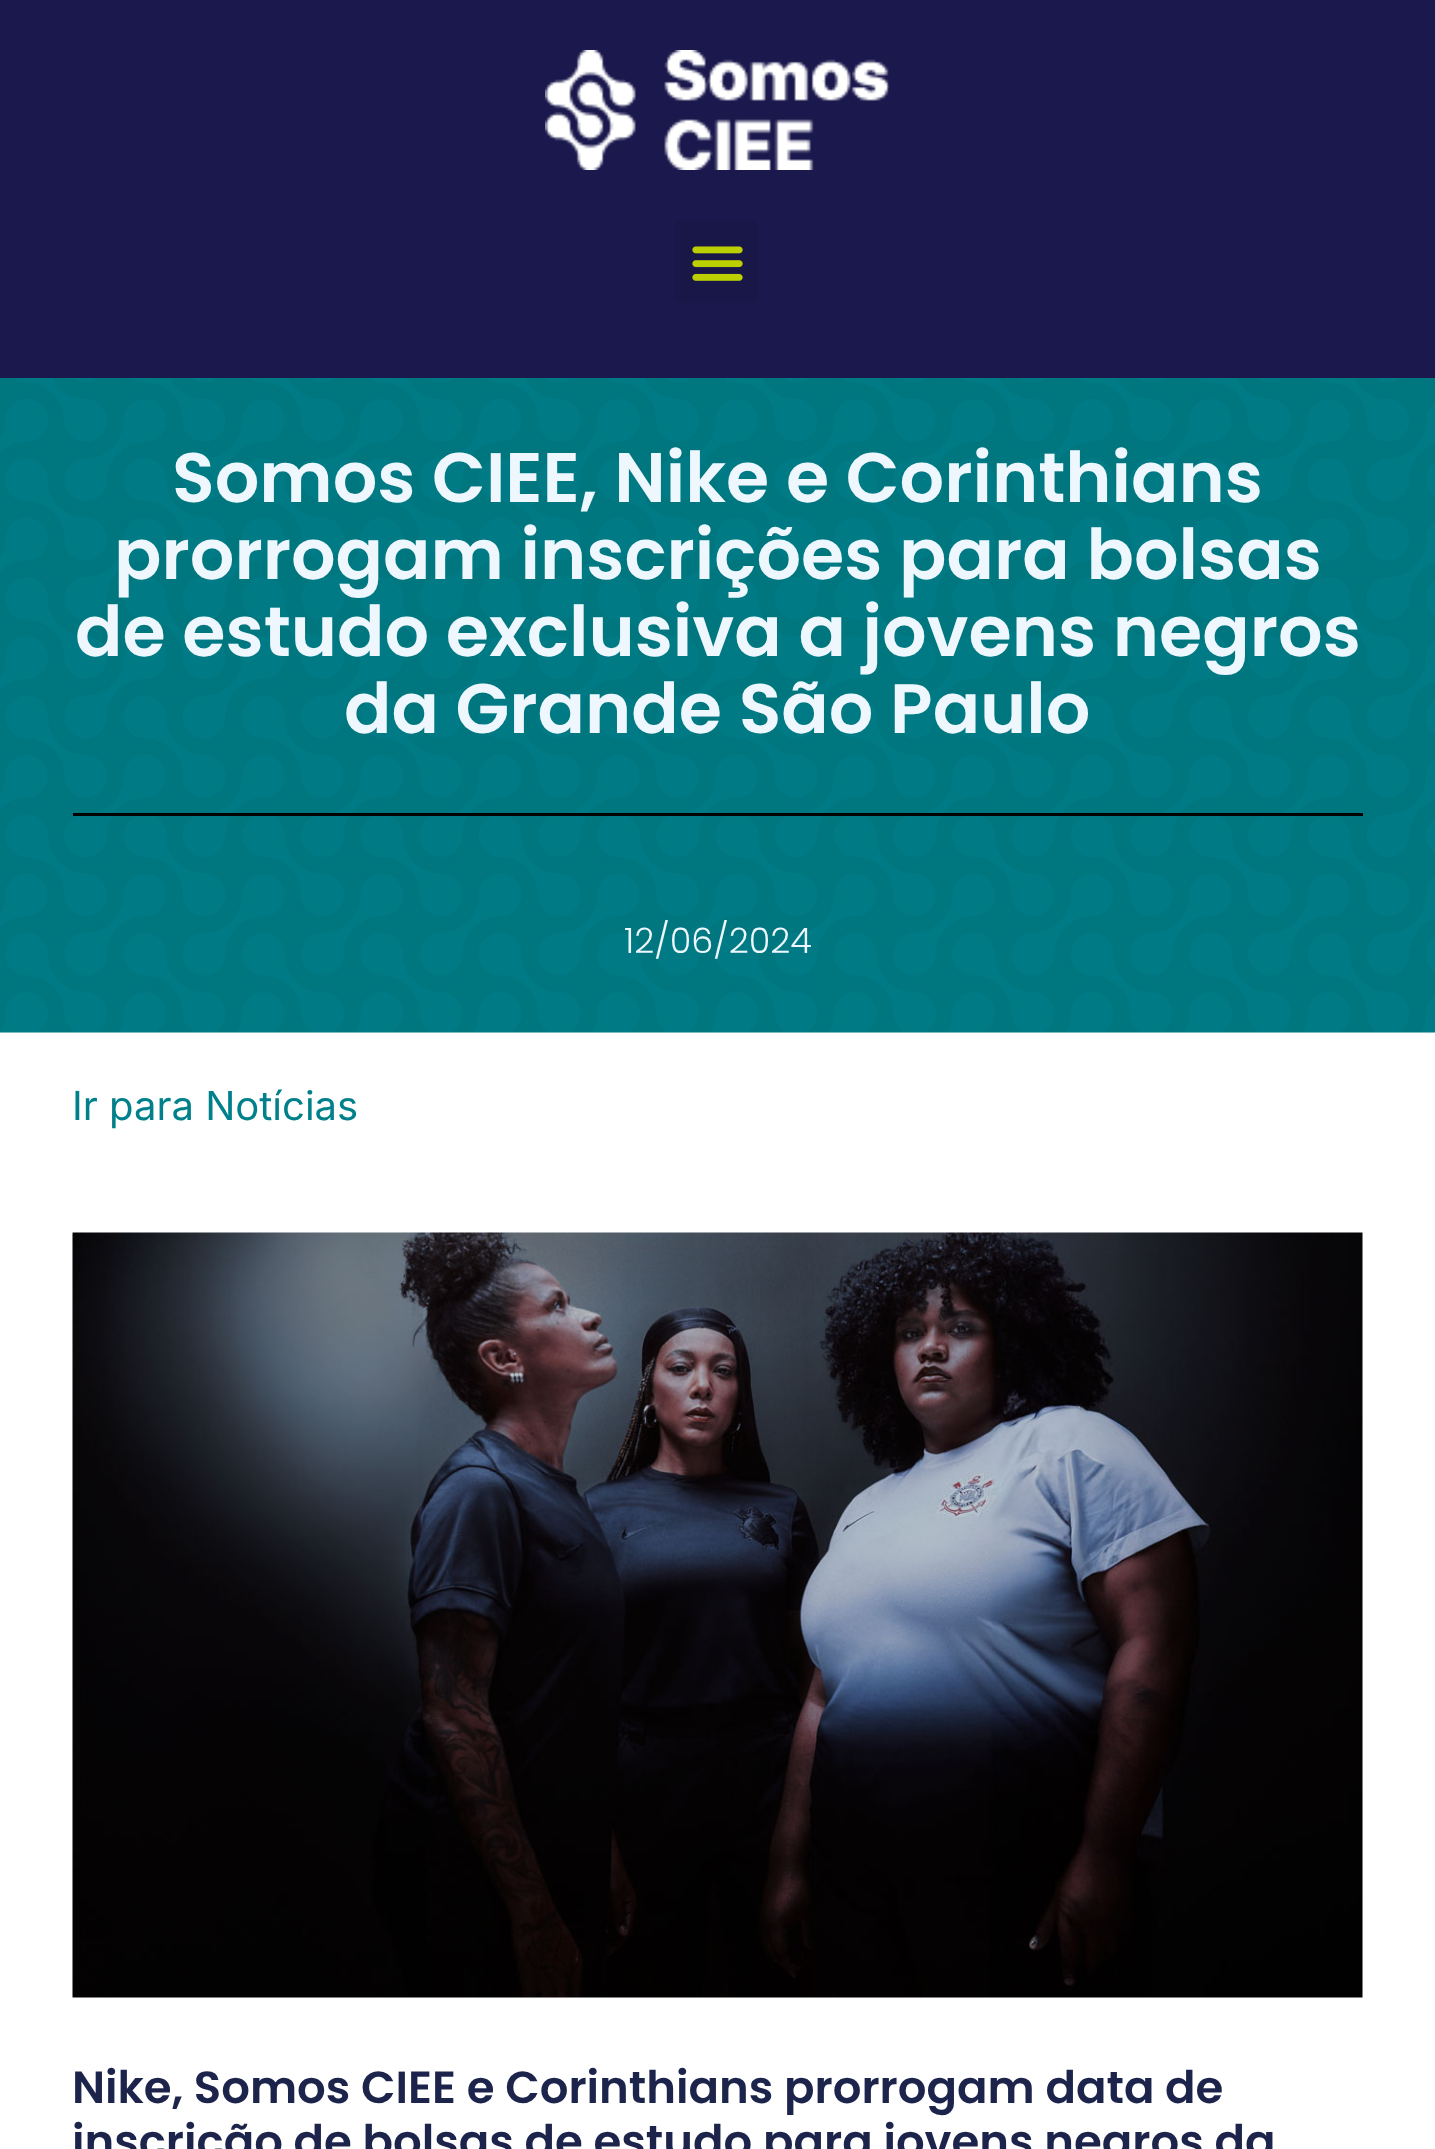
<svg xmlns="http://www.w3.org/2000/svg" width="1435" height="2149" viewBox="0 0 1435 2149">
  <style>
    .t1 { font: 600 70px Poppins; fill: #eef7fd; }
    .t2 { font: 300 35px Poppins; fill: #eef7fd; }
    .t3 { font: 40px Inter; fill: #00808a; }
    .t4 { font: 600 45px Poppins; fill: #1c244b; }
  </style>
  <rect width="100%" height="100%" fill="#fff"/>
  <rect x="0" y="0" width="1435" height="378" fill="#1a184c"/>
  <image x="545" y="50" width="345" height="120" href="images/1.png"/>
  <rect x="675" y="220" width="83" height="83" rx="8" fill="#191748"/>
  <image x="692" y="246" width="51" height="35" href="images/2.png"/>
  <image x="0" y="378" width="1435" height="655" href="images/3.png"/>
  <text x="172" y="502" class="t1">Somos CIEE, Nike e Corinthians</text>
  <text x="114" y="579" class="t1">prorrogam inscrições para bolsas</text>
  <text x="75" y="656" class="t1">de estudo exclusiva a jovens negros</text>
  <text x="344" y="733" class="t1">da Grande São Paulo</text>
  <rect x="73" y="813" width="1290" height="3" fill="#000"/>
  <text x="624" y="953" class="t2">12/06/2024</text>
  <text x="72" y="1120" class="t3">Ir para Notícias</text>
  <image x="72" y="1232" width="1291" height="766" href="images/4.png"/>
  <text x="72" y="2103" class="t4">Nike, Somos CIEE e Corinthians prorrogam data de</text>
  <text x="72" y="2157" class="t4">inscrição de bolsas de estudo para jovens negros da</text>
</svg>
